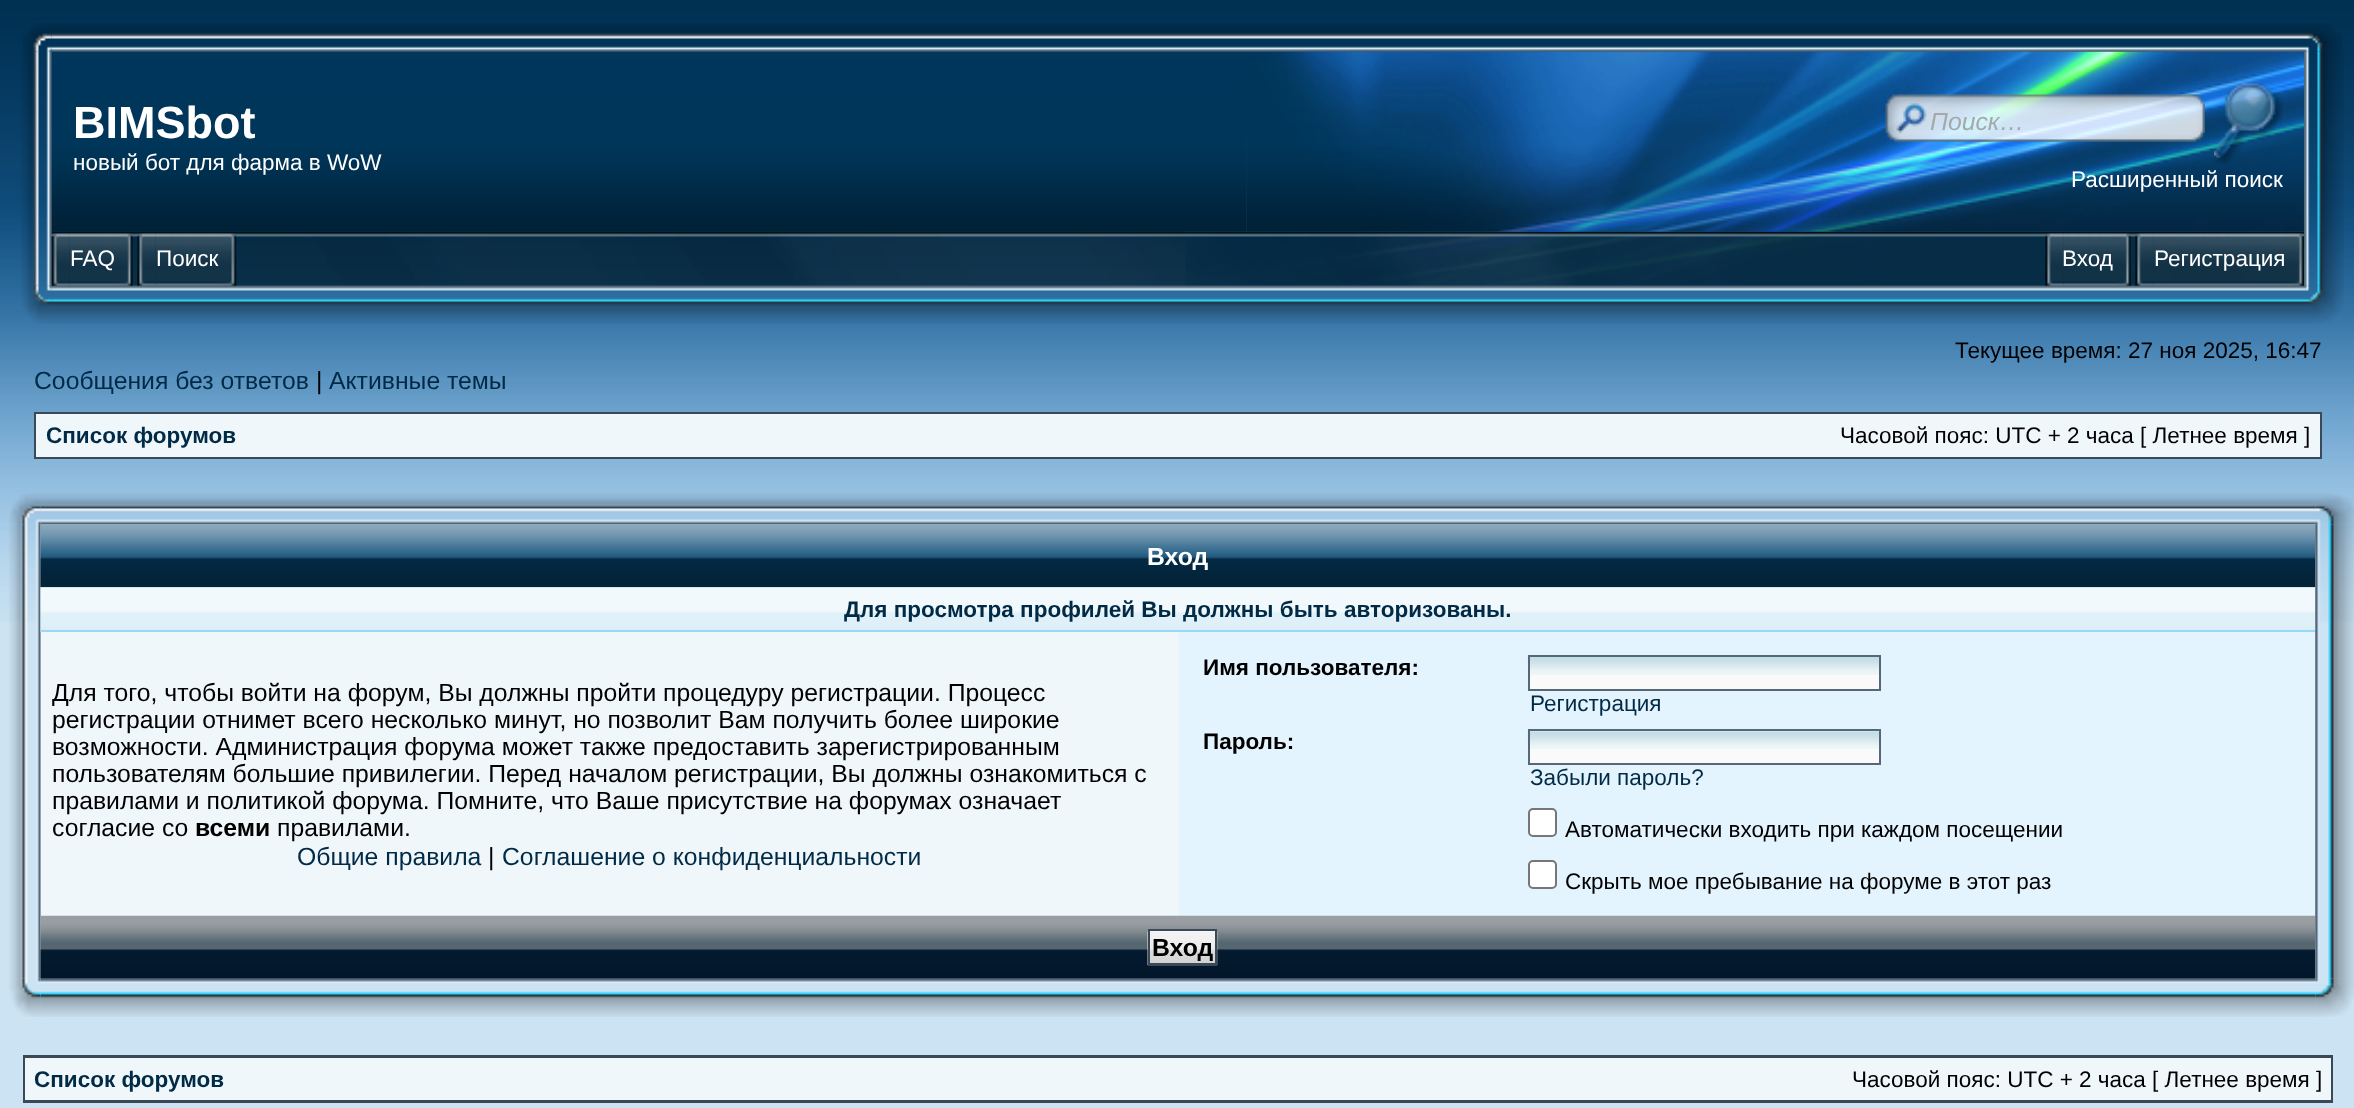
<svg xmlns="http://www.w3.org/2000/svg" width="2354" height="1108" viewBox="0 0 2354 1108">
  <style>
    .t1 { font: bold 45px Liberation Sans; fill: #fff; }
    .t2 { font: 22.5px Liberation Sans; fill: #fff; }
    .t3 { font: italic 24.75px Liberation Sans; fill: #a4a9ac; }
    .t4 { font: 22.5px Liberation Sans; fill: #000; }
    .t5 { font: 24.75px Liberation Sans; fill: #002a46; }
    .t6 { font: 24.75px Liberation Sans; fill: #000; }
    .t7 { font: bold 22.5px Liberation Sans; fill: #002a46; }
    .t8 { font: bold 24.75px Liberation Sans; fill: #fff; }
    .t9 { font: bold 24.75px Liberation Sans; fill: #000; }
    .t10 { font: bold 22.5px Liberation Sans; fill: #000; }
    .t11 { font: 22.5px Liberation Sans; fill: #002a46; }
  </style>
  <rect width="100%" height="100%" fill="#cce3f3"/>
  <image x="0" y="0" width="2354" height="622" href="images/1.png"/>
  <image x="51" y="23" width="2253" height="29" href="images/3.png"/>
  <image x="21" y="51" width="31" height="235" href="images/5.png"/>
  <image x="51" y="51" width="1196" height="181" href="images/6.png"/>
  <image x="22" y="23" width="30" height="29" href="images/2.png"/>
  <image x="2304" y="51" width="40" height="235" href="images/20.png"/>
  <image x="2304" y="23" width="39" height="29" href="images/4.png"/>
  <text x="73" y="138" class="t1">BIMSbot</text>
  <text x="73" y="170" class="t2">новый бот для фарма в WoW</text>
  <image x="1246" y="51" width="1058" height="181" href="images/7.png"/>
  <image x="1885" y="94" width="320" height="48" href="images/8.png"/>
  <text x="1930" y="130" class="t3">Поиск…</text>
  <image x="2214" y="83" width="69" height="81" href="images/9.png"/>
  <text x="2071" y="187" class="t2">Расширенный поиск</text>
  <image x="1185" y="231" width="1119" height="55" href="images/10.png"/>
  <image x="51" y="231" width="2253" height="55" href="images/11.png"/>
  <image x="51" y="285" width="2253" height="39" href="images/22.png"/>
  <image x="51" y="233" width="19" height="53" href="images/12.png"/>
  <image x="69" y="233" width="64" height="53" href="images/13.png"/>
  <text x="70" y="266" class="t2">FAQ</text>
  <image x="137" y="233" width="19" height="53" href="images/14.png"/>
  <image x="155" y="233" width="82" height="53" href="images/15.png"/>
  <text x="156" y="266" class="t2">Поиск</text>
  <image x="2045" y="233" width="19" height="53" href="images/16.png"/>
  <image x="2063" y="233" width="68" height="53" href="images/17.png"/>
  <text x="2062" y="266" class="t2">Вход</text>
  <image x="2135" y="233" width="19" height="53" href="images/18.png"/>
  <image x="2153" y="233" width="151" height="53" href="images/19.png"/>
  <text x="2154" y="266" class="t2">Регистрация</text>
  <image x="21" y="285" width="31" height="39" href="images/21.png"/>
  <image x="2304" y="285" width="40" height="39" href="images/23.png"/>
  <text x="1955" y="358" class="t4">Текущее время: 27 ноя 2025, 16:47</text>
  <text x="34" y="389" class="t5">Сообщения без ответов</text>
  <text x="316" y="389" class="t6">|</text>
  <text x="329" y="389" class="t5">Активные темы</text>
  <rect x="34" y="412" width="2288" height="47" fill="#3a4955"/>
  <rect x="36" y="414" width="2284" height="43" fill="#eff7fb"/>
  <text x="46" y="443" class="t7">Список форумов</text>
  <text x="1840" y="443" class="t4">Часовой пояс: UTC + 2 часа [ Летнее время ]</text>
  <image x="40" y="493" width="2276" height="32" href="images/25.png"/>
  <image x="9" y="524" width="32" height="455" href="images/27.png"/>
  <image x="40" y="524" width="2276" height="64" href="images/28.png"/>
  <image x="9" y="493" width="32" height="32" href="images/24.png"/>
  <image x="40" y="587" width="2276" height="46" href="images/29.png"/>
  <rect x="41" y="632" width="1138" height="284" fill="#eff7fb"/>
  <rect x="1179" y="632" width="1136" height="284" fill="#e4f4fe"/>
  <image x="40" y="915" width="2276" height="64" href="images/32.png"/>
  <image x="2315" y="524" width="39" height="455" href="images/34.png"/>
  <image x="2315" y="493" width="39" height="32" href="images/26.png"/>
  <text x="1147" y="565" class="t8">Вход</text>
  <rect x="41" y="630" width="2274" height="2" fill="#96d9f9"/>
  <text x="844" y="617" class="t7">Для просмотра профилей Вы должны быть авторизованы.</text>
  <text x="52" y="701" class="t6">Для того, чтобы войти на форум, Вы должны пройти процедуру регистрации. Процесс</text>
  <text x="52" y="728" class="t6">регистрации отнимет всего несколько минут, но позволит Вам получить более широкие</text>
  <text x="52" y="755" class="t6">возможности. Администрация форума может также предоставить зарегистрированным</text>
  <text x="52" y="782" class="t6">пользователям большие привилегии. Перед началом регистрации, Вы должны ознакомиться с</text>
  <text x="52" y="809" class="t6">правилами и политикой форума. Помните, что Ваше присутствие на форумах означает</text>
  <text x="52" y="836" class="t6">согласие со</text>
  <text x="195" y="836" class="t9">всеми</text>
  <text x="277" y="836" class="t6">правилами.</text>
  <text x="297" y="865" class="t5">Общие правила</text>
  <text x="488" y="865" class="t6">|</text>
  <text x="502" y="865" class="t5">Соглашение о конфиденциальности</text>
  <text x="1203" y="675" class="t10">Имя пользователя:</text>
  <rect x="1530" y="675" width="349" height="14" fill="#fafafa"/>
  <image x="1527" y="657" width="352" height="18" href="images/30.png"/>
  <rect x="1529" y="656" width="351" height="34" fill="none" stroke="#566877" stroke-width="2"/>
  <text x="1530" y="711" class="t11">Регистрация</text>
  <text x="1203" y="749" class="t10">Пароль:</text>
  <rect x="1530" y="731" width="349" height="32" fill="#fafafa"/>
  <image x="1527" y="731" width="352" height="18" href="images/31.png"/>
  <rect x="1529" y="730" width="351" height="34" fill="none" stroke="#566877" stroke-width="2"/>
  <text x="1530" y="785" class="t11">Забыли пароль?</text>
  <rect x="1529" y="809" width="27" height="27" rx="4" fill="#fff" stroke="#767676" stroke-width="2"/>
  <text x="1565" y="837" class="t4">Автоматически входить при каждом посещении</text>
  <rect x="1529" y="861" width="27" height="27" rx="4" fill="#fff" stroke="#767676" stroke-width="2"/>
  <text x="1565" y="889" class="t4">Скрыть мое пребывание на форуме в этот раз</text>
  <rect x="1150" y="931" width="65" height="1" fill="#fafafa"/>
  <image x="1147" y="931" width="71" height="35" href="images/33.png"/>
  <rect x="1149" y="930" width="67" height="34" fill="none" stroke="#3a4955" stroke-width="2"/>
  <text x="1152" y="956" class="t9">Вход</text>
  <image x="40" y="978" width="2276" height="39" href="images/36.png"/>
  <image x="9" y="978" width="32" height="39" href="images/35.png"/>
  <image x="2315" y="978" width="39" height="39" href="images/37.png"/>
  <rect x="23" y="1055" width="2310" height="48" fill="#3a4955"/>
  <rect x="25" y="1058" width="2306" height="42" fill="#eff7fb"/>
  <text x="34" y="1087" class="t7">Список форумов</text>
  <text x="1852" y="1087" class="t4">Часовой пояс: UTC + 2 часа [ Летнее время ]</text>
</svg>
